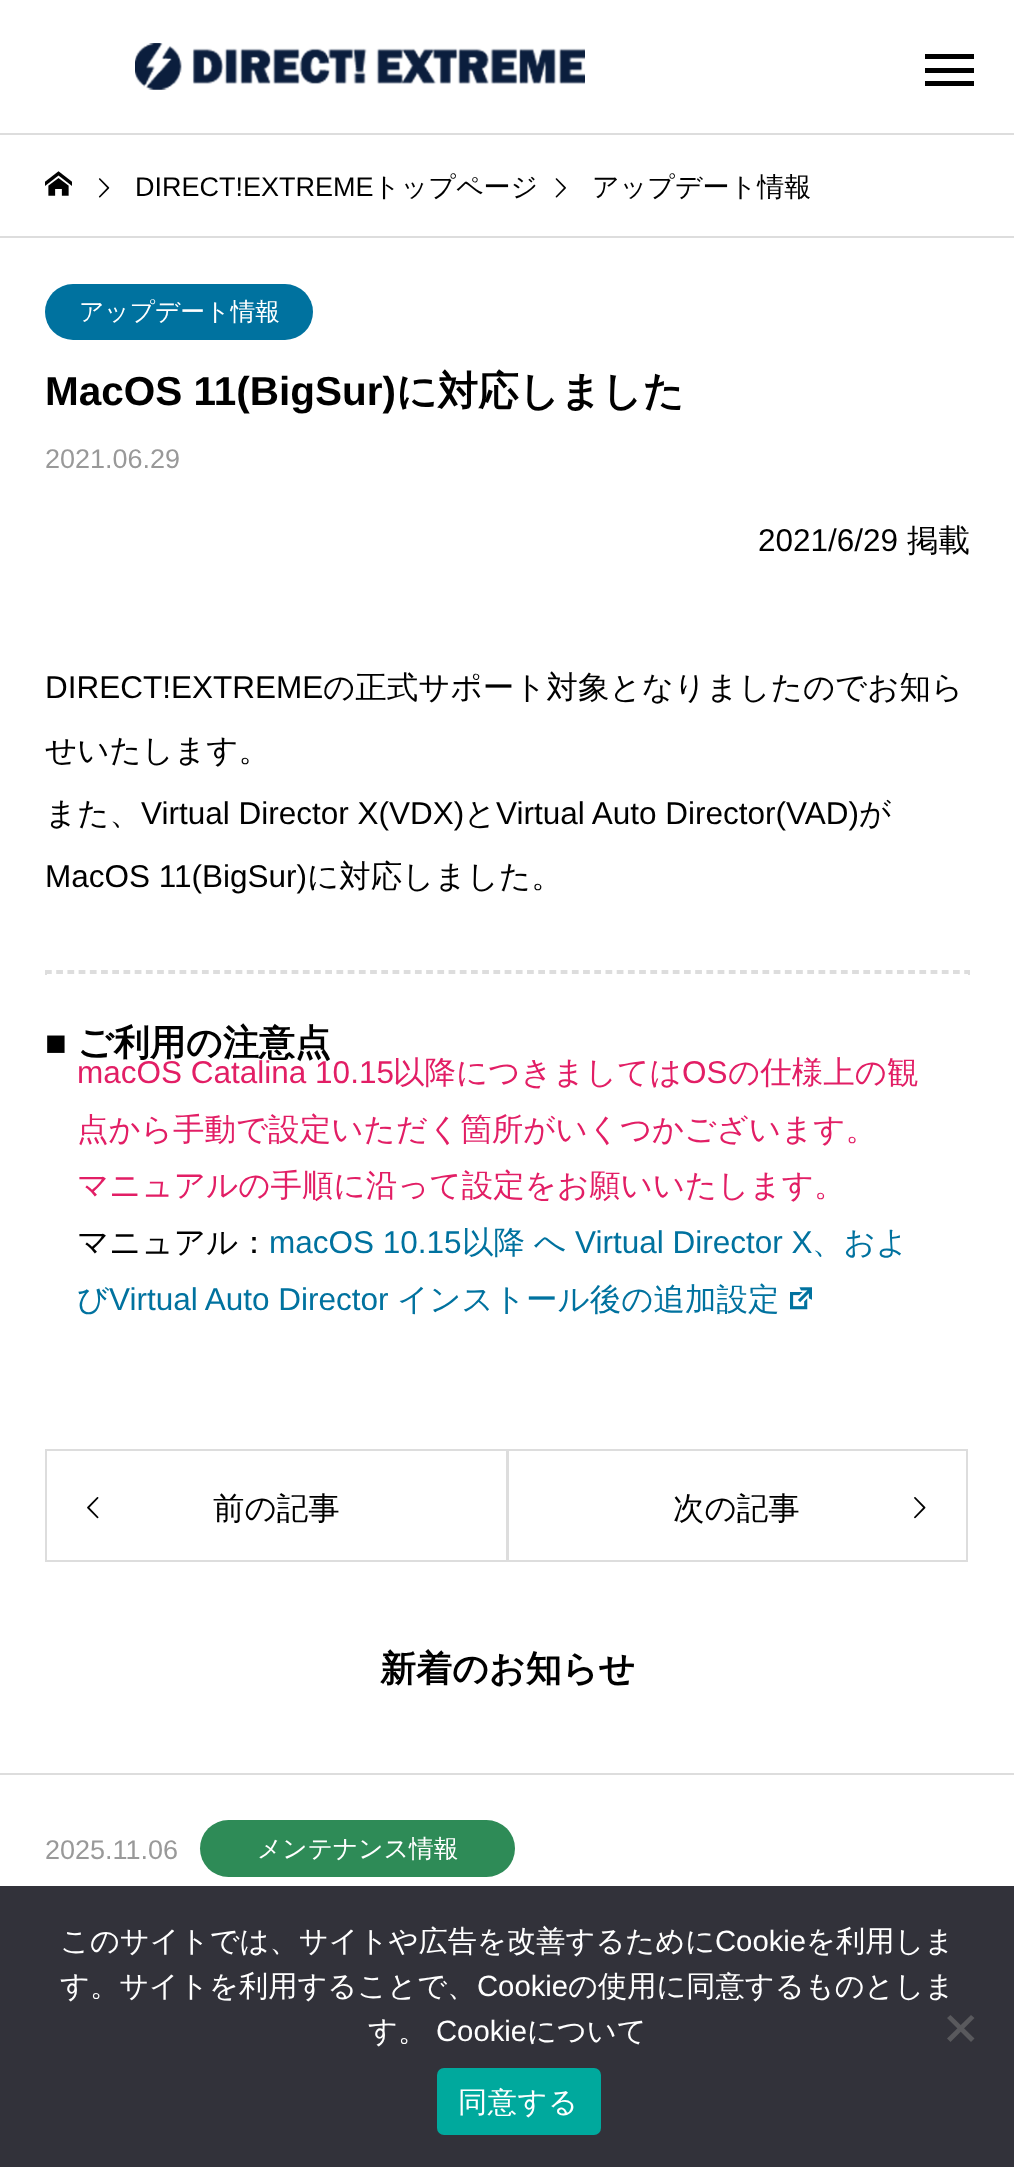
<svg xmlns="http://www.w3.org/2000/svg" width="1014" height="2167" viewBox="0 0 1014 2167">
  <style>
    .t1 { font: 27px Liberation Sans; fill: #000; }
    .t2 { font: 500 27px WenQuanYi Zen Hei; fill: #000; }
    .t3 { font: 500 24.75px WenQuanYi Zen Hei; fill: #fff; }
    .t4 { font: bold 40.5px Liberation Sans; fill: #000; }
    .t5 { font: bold 40.5px WenQuanYi Zen Hei; fill: #000; }
    .t6 { font: 27px Liberation Sans; fill: #999; }
    .t7 { font: 31.5px Liberation Sans; fill: #000; }
    .t8 { font: 500 31.5px WenQuanYi Zen Hei; fill: #000; }
    .t9 { font: bold 36px Liberation Sans; fill: #000; }
    .t10 { font: bold 36px WenQuanYi Zen Hei; fill: #000; }
    .t11 { font: 31.5px Liberation Sans; fill: #e21e65; }
    .t12 { font: 500 31.5px WenQuanYi Zen Hei; fill: #e21e65; }
    .t13 { font: 31.5px Liberation Sans; fill: #00729f; }
    .t14 { font: 500 31.5px WenQuanYi Zen Hei; fill: #00729f; }
    .t15 { font: 500 29.25px WenQuanYi Zen Hei; fill: #fff; }
    .t16 { font: 29.25px Liberation Sans; fill: #fff; }
    .t17 { font: 500 29.25px WenQuanYi Zen Hei; letter-spacing: 0.5px; fill: #fff; }
  </style>
  <rect width="100%" height="100%" fill="#fff"/>
  <image x="135" y="43" width="450" height="47" href="images/1.png"/>
  <rect x="925" y="54" width="49" height="5" fill="#000"/>
  <rect x="925" y="68" width="49" height="5" fill="#000"/>
  <rect x="925" y="81" width="49" height="5" fill="#000"/>
  <rect x="0" y="133" width="1014" height="2" fill="#ddd"/>
  <rect x="0" y="236" width="1014" height="2" fill="#ddd"/>
  <image x="45" y="171" width="27" height="25" href="images/2.png"/>
  <image x="98" y="178" width="12" height="20" href="images/3.png"/>
  <text x="135" y="196" class="t1">DIRECT!EXTREME</text>
  <text x="373" y="196" class="t2">トップページ</text>
  <image x="555" y="178" width="11" height="20" href="images/4.png"/>
  <text x="592" y="196" class="t2">アップデート情報</text>
  <rect x="45" y="284" width="268" height="56" rx="28" fill="#00729f"/>
  <text x="79" y="320" class="t3">アップデート情報</text>
  <text x="45" y="405" class="t4">MacOS 11(BigSur)</text>
  <text x="396" y="405" class="t5">に対応しました</text>
  <text x="45" y="468" class="t6">2021.06.29</text>
  <text x="758" y="551" class="t7">2021/6/29</text>
  <text x="907" y="551" class="t8">掲載</text>
  <text x="45" y="698" class="t7">DIRECT!EXTREME</text>
  <text x="323" y="698" class="t8">の正式サポート対象となりましたのでお知ら</text>
  <text x="45" y="761" class="t8">せいたします。</text>
  <text x="45" y="824" class="t8">また、</text>
  <text x="141" y="824" class="t7">Virtual Director X(VDX)</text>
  <text x="464" y="824" class="t8">と</text>
  <text x="496" y="824" class="t7">Virtual Auto Director(VAD)</text>
  <text x="859" y="824" class="t8">が</text>
  <text x="45" y="887" class="t7">MacOS 11(BigSur)</text>
  <text x="307" y="887" class="t8">に対応しました。</text>
  <path d="M45 971H970" fill="none" stroke="#ddd" stroke-width="2.2" stroke-dasharray="6.75 4.46"/>
  <rect x="968" y="970" width="2" height="5" fill="#ddd"/>
  <path d="M45 973H970" fill="none" stroke="#ddd" stroke-width="2.2" stroke-dasharray="6.75 4.46"/>
  <rect x="45" y="970" width="2" height="5" fill="#ddd"/>
  <text x="45" y="1055" class="t9">■</text>
  <text x="77" y="1055" class="t10">ご利用の注意点</text>
  <text x="77" y="1083" class="t11">macOS Catalina 10.15</text>
  <text x="393" y="1083" class="t12">以降につきましては</text>
  <text x="682" y="1083" class="t11">OS</text>
  <text x="728" y="1083" class="t12">の仕様上の観</text>
  <text x="77" y="1140" class="t12">点から手動で設定いただく箇所がいくつかございます。</text>
  <text x="77" y="1196" class="t12">マニュアルの手順に沿って設定をお願いいたします。</text>
  <text x="269" y="1253" class="t13">macOS 10.15</text>
  <text x="462" y="1253" class="t14">以降</text>
  <text x="534" y="1253" class="t14">へ</text>
  <text x="575" y="1253" class="t13">Virtual Director X</text>
  <text x="812" y="1253" class="t14">、およ</text>
  <text x="77" y="1310" class="t14">び</text>
  <text x="109" y="1310" class="t13">Virtual Auto Director</text>
  <text x="397" y="1310" class="t14">インストール後の追加設定</text>
  <image x="790" y="1287" width="22" height="23" href="images/5.png"/>
  <text x="77" y="1253" class="t8">マニュアル：</text>
  <rect x="46" y="1450" width="462" height="111" fill="none" stroke="#ddd" stroke-width="2"/>
  <image x="87" y="1497" width="12" height="22" href="images/6.png"/>
  <text x="213" y="1519" class="t8">前の記事</text>
  <rect x="507" y="1450" width="460" height="111" fill="none" stroke="#ddd" stroke-width="2"/>
  <text x="673" y="1519" class="t8">次の記事</text>
  <image x="914" y="1497" width="12" height="22" href="images/7.png"/>
  <text x="380" y="1681" class="t10">新着のお知らせ</text>
  <rect x="0" y="1773" width="1014" height="2" fill="#ddd"/>
  <text x="45" y="1859" class="t6">2025.11.06</text>
  <rect x="200" y="1820" width="315" height="57" rx="28.5" fill="#2e8b57"/>
  <text x="257" y="1857" class="t3">メンテナンス情報</text>
  <rect x="0" y="1886" width="1014" height="281" fill="#32323a"/>
  <text x="60" y="1951" class="t15">このサイトでは、サイトや広告を改善するために</text>
  <text x="715" y="1951" class="t16">Cookie</text>
  <text x="806" y="1951" class="t15">を利用しま</text>
  <text x="60" y="1996" class="t15">す。サイトを利用することで、</text>
  <text x="477" y="1996" class="t16">Cookie</text>
  <text x="568" y="1996" class="t15">の使用に同意するものとしま</text>
  <text x="368" y="2041" class="t15">す。</text>
  <text x="436" y="2041" class="t16">Cookie</text>
  <text x="527" y="2041" class="t15">について</text>
  <path d="M971 2015L974.5 2018L950.5 2042L947 2038.5Z" fill="#59595d"/>
  <path d="M947 2018L950.5 2015L974.5 2038.5L971 2042Z" fill="#59595d"/>
  <rect x="437" y="2068" width="164" height="67" rx="7" fill="#00a99d"/>
  <text x="458" y="2112" class="t17">同意する</text>
</svg>
